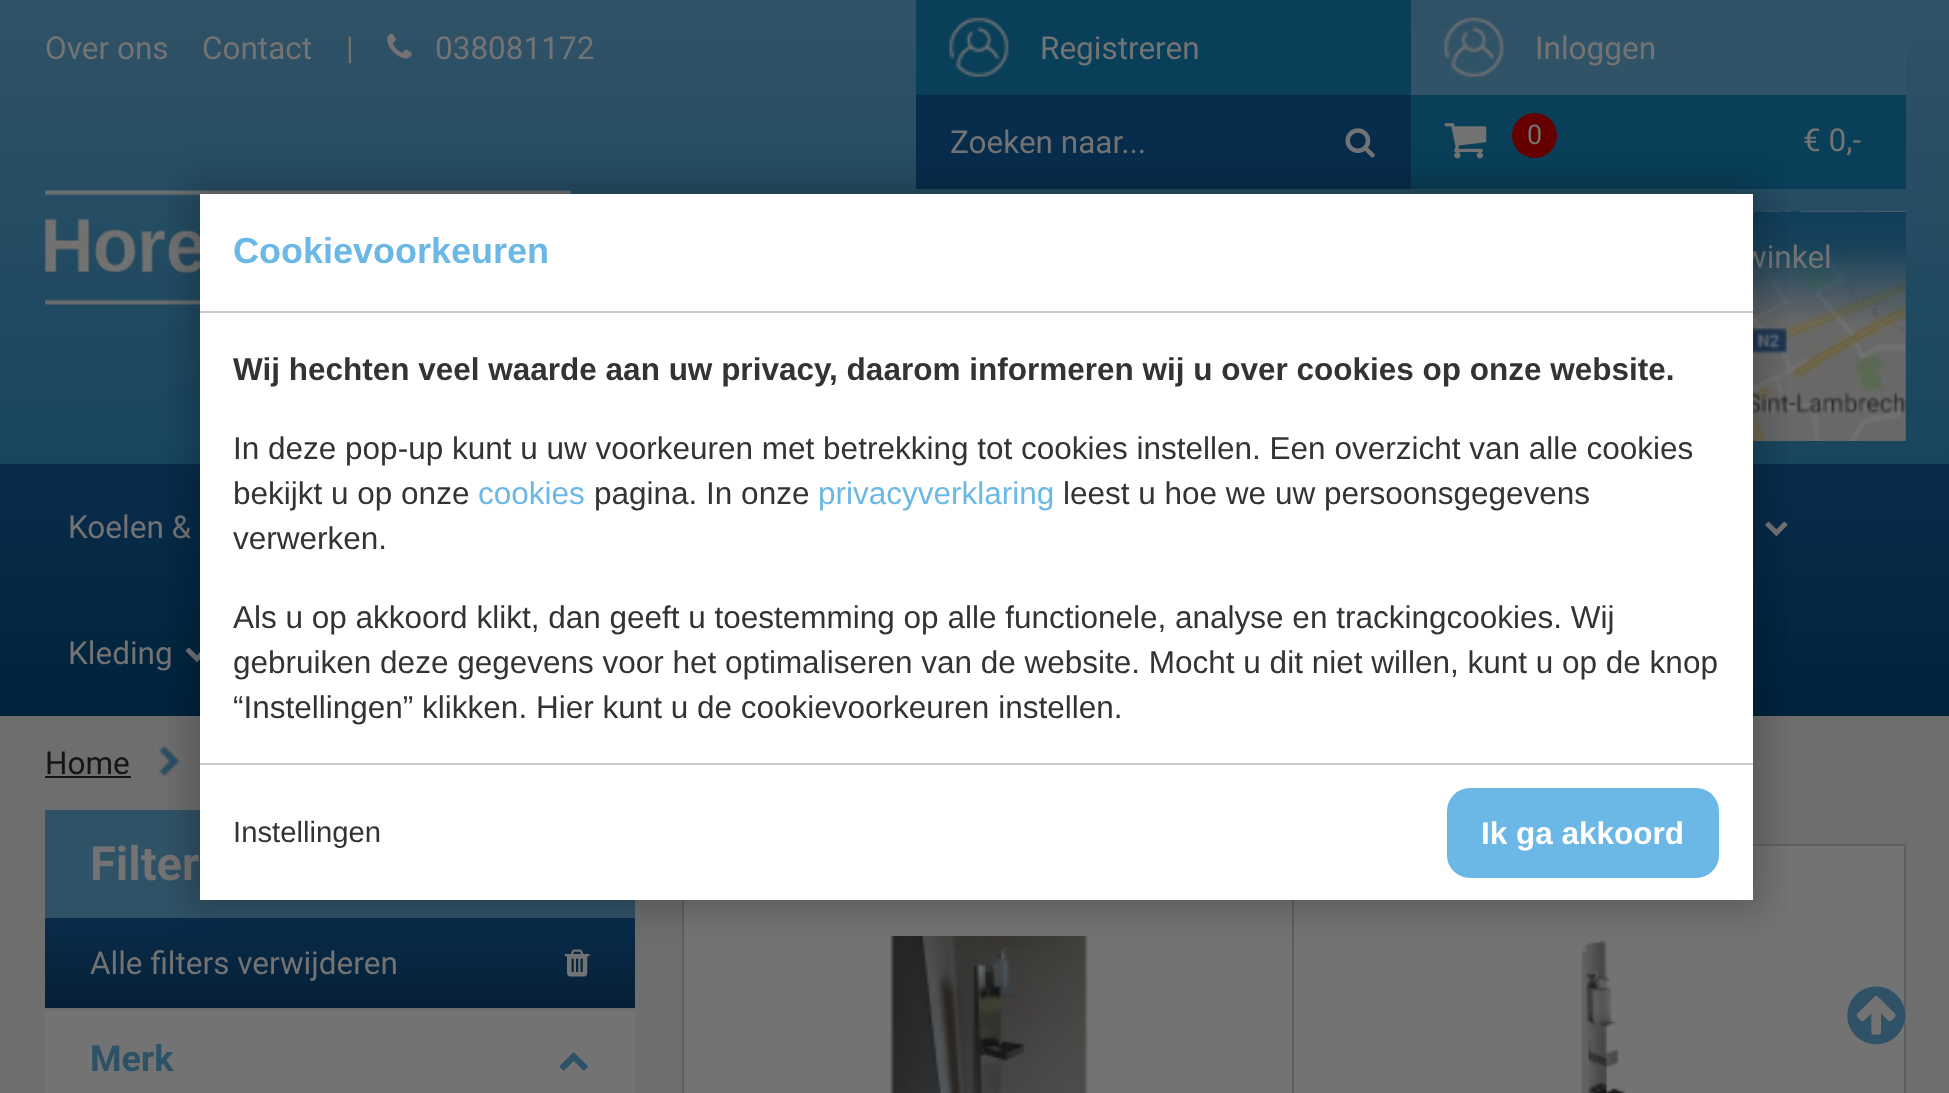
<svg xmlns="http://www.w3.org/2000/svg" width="1949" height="1093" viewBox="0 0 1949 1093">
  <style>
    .t1 { font: 31.5px Roboto; fill: #737373; }
    .t2 { font: 27px Roboto; fill: #737373; }
    .t3 { font: 31.5px Roboto; fill: #151515; }
    .t4 { font: bold 47px Roboto; fill: #737373; }
    .t5 { font: bold 36px Roboto; fill: #2d5166; }
    .t6 { font: bold 36px Liberation Sans; fill: #6bb7e5; }
    .t7 { font: bold 31.5px Liberation Sans; fill: #333; }
    .t8 { font: 31.5px Liberation Sans; fill: #333; }
    .t9 { font: 31.5px Liberation Sans; fill: #6bb7e5; }
    .t10 { font: 29.25px Liberation Sans; fill: #333; }
    .t11 { font: bold 31.5px Liberation Sans; fill: #fff; }
  </style>
  <defs>
    <linearGradient id="g1" gradientUnits="userSpaceOnUse" x1="975" y1="0" x2="975" y2="716"><stop offset="0" stop-color="#305267"/><stop offset="1" stop-color="#0a3f5a"/></linearGradient>
    <linearGradient id="g2" gradientUnits="userSpaceOnUse" x1="1658" y1="211" x2="1658" y2="324"><stop offset="0" stop-color="#103e5a"/><stop offset="0.01" stop-color="#103e5a"/><stop offset="0.3" stop-color="#103e5a" stop-opacity="0.93"/><stop offset="1" stop-color="#103e5a" stop-opacity="0"/></linearGradient>
    <linearGradient id="g3" gradientUnits="userSpaceOnUse" x1="975" y1="463" x2="975" y2="716"><stop offset="0" stop-color="#092c4b"/><stop offset="1" stop-color="#00233c"/></linearGradient>
    <linearGradient id="g4" gradientUnits="userSpaceOnUse" x1="340" y1="918" x2="340" y2="1008"><stop offset="0" stop-color="#092c4b"/><stop offset="1" stop-color="#061f36"/></linearGradient>
    <clipPath id="clip1"><rect x="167" y="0" width="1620" height="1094"/></clipPath>
  </defs>
  <rect width="100%" height="100%" fill="#fff"/>
  <rect x="0" y="0" width="1949" height="464" fill="url(#g1)"/>
  <text x="45" y="59" class="t1">Over ons</text>
  <text x="202" y="59" class="t1">Contact</text>
  <text x="346" y="59" class="t1">|</text>
  <image x="387" y="33" width="25" height="26" href="images/1.png"/>
  <text x="435" y="59" class="t1">038081172</text>
  <rect x="916" y="0" width="495" height="95" fill="#093f59"/>
  <image x="949" y="17" width="60" height="61" href="images/2.png"/>
  <text x="1040" y="59" class="t1">Registreren</text>
  <rect x="916" y="95" width="495" height="94" fill="#082c4c"/>
  <text x="950" y="153" class="t1">Zoeken naar...</text>
  <image x="1345" y="128" width="30" height="30" href="images/3.png"/>
  <rect x="1411" y="28" width="495" height="67" fill="#315367"/>
  <image x="1444" y="17" width="60" height="61" href="images/4.png"/>
  <text x="1535" y="59" class="t1">Inloggen</text>
  <rect x="1411" y="95" width="495" height="94" fill="#093f59"/>
  <image x="1444" y="123" width="43" height="36" href="images/5.png"/>
  <circle cx="1534.5" cy="135.5" r="22.5" fill="#600"/>
  <text x="1527" y="144" class="t2">0</text>
  <text x="1803" y="151" class="t1">€ 0,-</text>
  <image x="45" y="190" width="527" height="115" href="images/6.png"/>
  <image x="1753" y="211" width="153" height="230" href="images/7.png"/>
  <rect x="1753" y="212" width="153" height="110" fill="url(#g2)"/>
  <text x="1743" y="268" class="t1">winkel</text>
  <rect x="0" y="464" width="1949" height="252" fill="url(#g3)"/>
  <text x="68" y="538" class="t1">Koelen &amp;</text>
  <image x="1765" y="521" width="23" height="15" href="images/8.png"/>
  <text x="68" y="664" class="t1">Kleding</text>
  <image x="185" y="647" width="15" height="15" href="images/9.png"/>
  <rect x="0" y="716" width="1949" height="377" fill="#6e6e6f"/>
  <image x="159" y="746" width="22" height="31" href="images/10.png"/>
  <text x="45" y="774" class="t3">Home</text>
  <rect x="45" y="776" width="86" height="2" fill="#151515"/>
  <rect x="45" y="810" width="590" height="108" fill="#305267"/>
  <text x="90" y="880" class="t4">Filter</text>
  <rect x="45" y="918" width="590" height="90" fill="url(#g4)"/>
  <text x="90" y="974" class="t1">Alle filters verwijderen</text>
  <image x="564" y="949" width="26" height="28" href="images/11.png"/>
  <rect x="45" y="1010" width="590" height="83" fill="#737373"/>
  <rect x="45" y="1008" width="590" height="2" fill="#6c6c6c"/>
  <text x="90" y="1071" class="t5">Merk</text>
  <image x="559" y="1052" width="29" height="19" href="images/12.png"/>
  <rect x="682" y="900" width="2" height="193" fill="#5f5f5f"/>
  <rect x="684" y="900" width="608" height="193" fill="#737373"/>
  <rect x="1292" y="900" width="2" height="193" fill="#5f5f5f"/>
  <image x="890" y="936" width="198" height="157" href="images/13.png"/>
  <rect x="1294" y="846" width="610" height="247" fill="#737373"/>
  <rect x="1753" y="844" width="153" height="2" fill="#5f5f5f"/>
  <rect x="1904" y="844" width="2" height="249" fill="#5f5f5f"/>
  <image x="1581" y="940" width="45" height="153" href="images/14.png"/>
  <image x="1847" y="986" width="59" height="59" href="images/15.png"/>
  <g clip-path="url(#clip1)">
    <rect x="189" y="182" width="1575" height="729" fill="#00000033" filter="blur(17px)"/>
  </g>
  <rect x="200" y="194" width="1553" height="706" fill="#fff"/>
  <rect x="200" y="311" width="1553" height="2" fill="#ccc"/>
  <text x="233" y="263" class="t6">Cookievoorkeuren</text>
  <text x="233" y="380" class="t7">Wij hechten veel waarde aan uw privacy, daarom informeren wij u over cookies op onze website.</text>
  <text x="233" y="459" class="t8">In deze pop-up kunt u uw voorkeuren met betrekking tot cookies instellen. Een overzicht van alle cookies</text>
  <text x="233" y="504" class="t8">bekijkt u op onze</text>
  <text x="478" y="504" class="t9">cookies</text>
  <text x="594" y="504" class="t8">pagina. In onze</text>
  <text x="818" y="504" class="t9">privacyverklaring</text>
  <text x="1063" y="504" class="t8">leest u hoe we uw persoonsgegevens</text>
  <text x="233" y="549" class="t8">verwerken.</text>
  <text x="233" y="628" class="t8">Als u op akkoord klikt, dan geeft u toestemming op alle functionele, analyse en trackingcookies. Wij</text>
  <text x="233" y="673" class="t8">gebruiken deze gegevens voor het optimaliseren van de website. Mocht u dit niet willen, kunt u op de knop</text>
  <text x="233" y="718" class="t8">“Instellingen” klikken. Hier kunt u de cookievoorkeuren instellen.</text>
  <rect x="200" y="763" width="1553" height="2" fill="#ccc"/>
  <text x="233" y="842" class="t10">Instellingen</text>
  <rect x="1448" y="789" width="270" height="88" rx="22" fill="#6bb7e5" stroke="#6bb7e5" stroke-width="2"/>
  <text x="1481" y="844" class="t11">Ik ga akkoord</text>
</svg>
